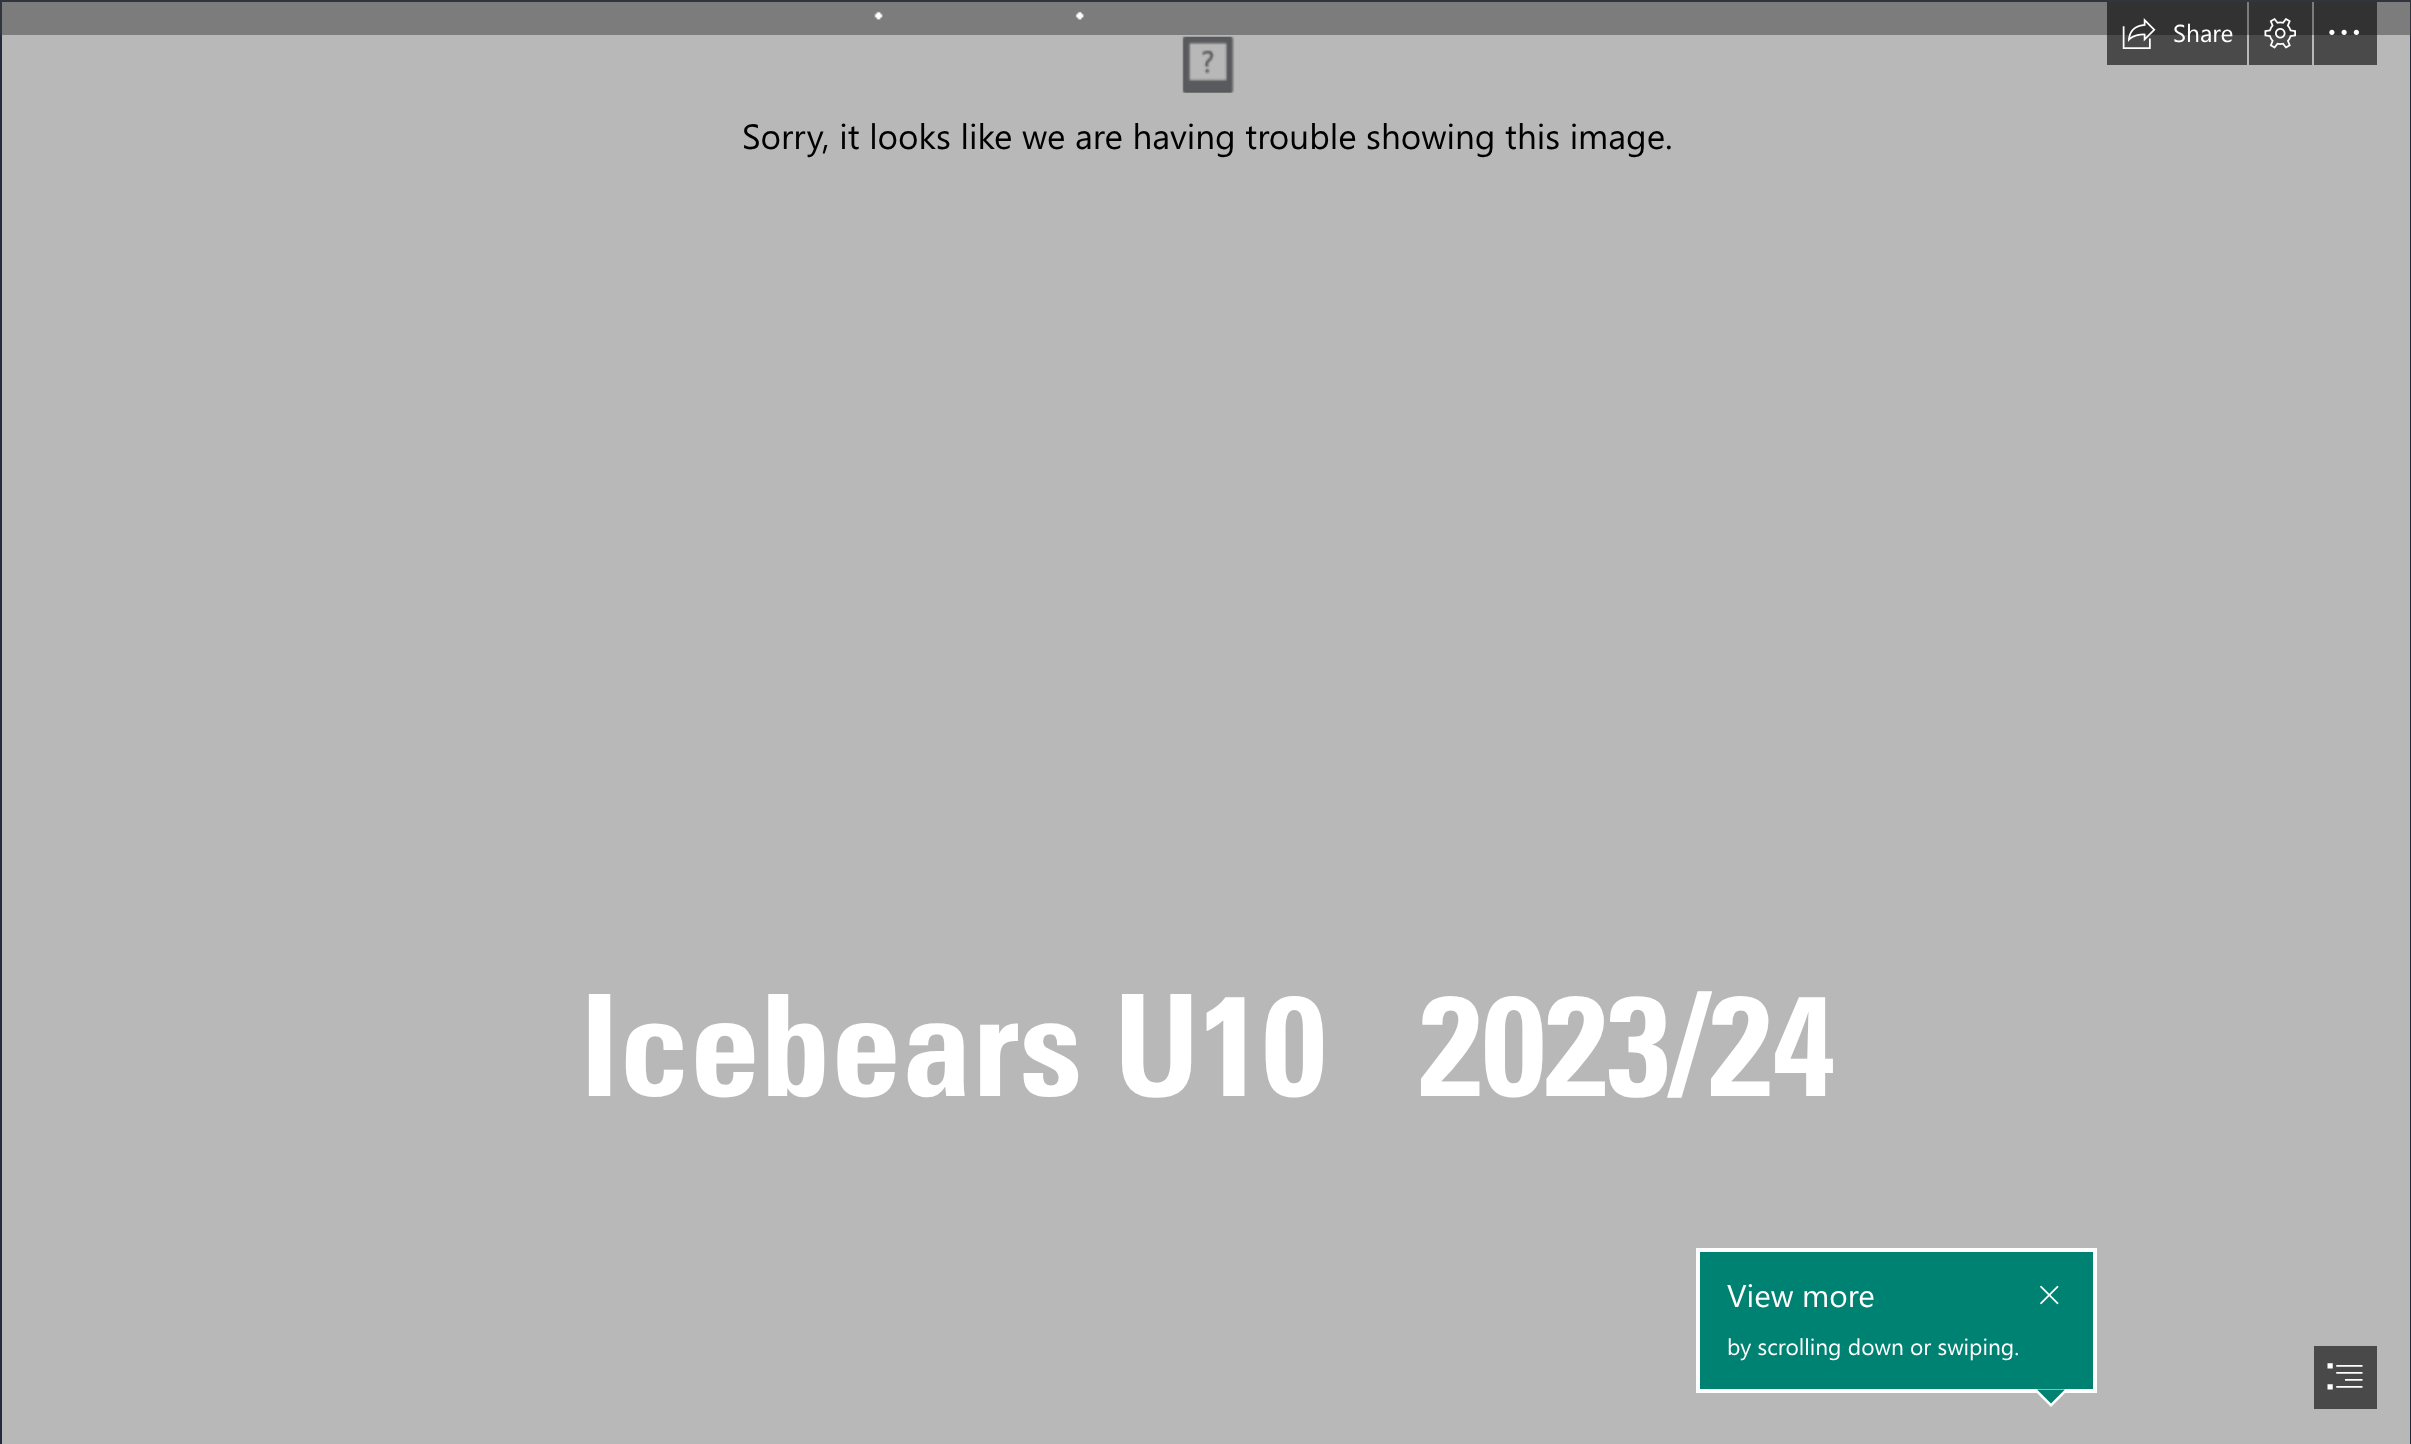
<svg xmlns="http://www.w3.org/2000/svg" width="2411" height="1444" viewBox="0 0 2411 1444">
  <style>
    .t1 { font: 24.5px Segoe UI; fill: #fff; }
    .t2 { font: 35px Segoe UI; fill: #000; }
    .t3 { font: bold 141.25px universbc; fill: #fff; }
    .t4 { font: 31.5px Segoe UI; fill: #fff; }
    .t5 { font: 22.75px Segoe UI; fill: #fff; }
  </style>
  <rect width="100%" height="100%" fill="#212a3e"/>
  <rect x="0" y="0" width="2411" height="35" fill="#31353f"/>
  <rect x="2" y="35" width="2408" height="1409" fill="#b8b8b8"/>
  <rect x="2107" y="35" width="140" height="30" fill="#4a4a4a"/>
  <rect x="2" y="2" width="2408" height="33" fill="#7c7c7c"/>
  <rect x="2107" y="2" width="140" height="33" fill="#323232"/>
  <image x="2122" y="18" width="34" height="31" href="images/1.png"/>
  <text x="2173" y="42" class="t1">Share</text>
  <rect x="2249" y="35" width="63" height="30" fill="#4a4a4a"/>
  <rect x="2249" y="2" width="63" height="33" fill="#323232"/>
  <image x="2264" y="18" width="32" height="31" href="images/2.png"/>
  <rect x="2314" y="2" width="63" height="33" fill="#323232"/>
  <image x="2329" y="29" width="30" height="6" href="images/3.png"/>
  <image x="874" y="11" width="210" height="9" href="images/4.png"/>
  <rect x="2314" y="35" width="63" height="30" fill="#4a4a4a"/>
  <image x="1182" y="36" width="53" height="57" href="images/5.png"/>
  <text x="742" y="149" class="t2">Sorry, it looks like we are having trouble showing this image.</text>
  <text x="580" y="1096" class="t3" xml:space="preserve">Icebears U10   2023/24</text>
  <rect x="1698" y="1250" width="397" height="141" fill="#008272" stroke="#fff" stroke-width="4"/>
  <text x="1727" y="1307" class="t4">View more</text>
  <text x="1727" y="1355" class="t5">by scrolling down or swiping.</text>
  <image x="2040" y="1285" width="19" height="20" href="images/6.png"/>
  <path d="M2033.5 1389.5H2068.5L2051 1407Z" fill="#fff"/>
  <path d="M2037 1389.5H2065L2051 1403.5Z" fill="#008272"/>
  <rect x="2314" y="1346" width="63" height="63" fill="#494949"/>
  <image x="2327" y="1363" width="36" height="27" href="images/7.png"/>
</svg>
